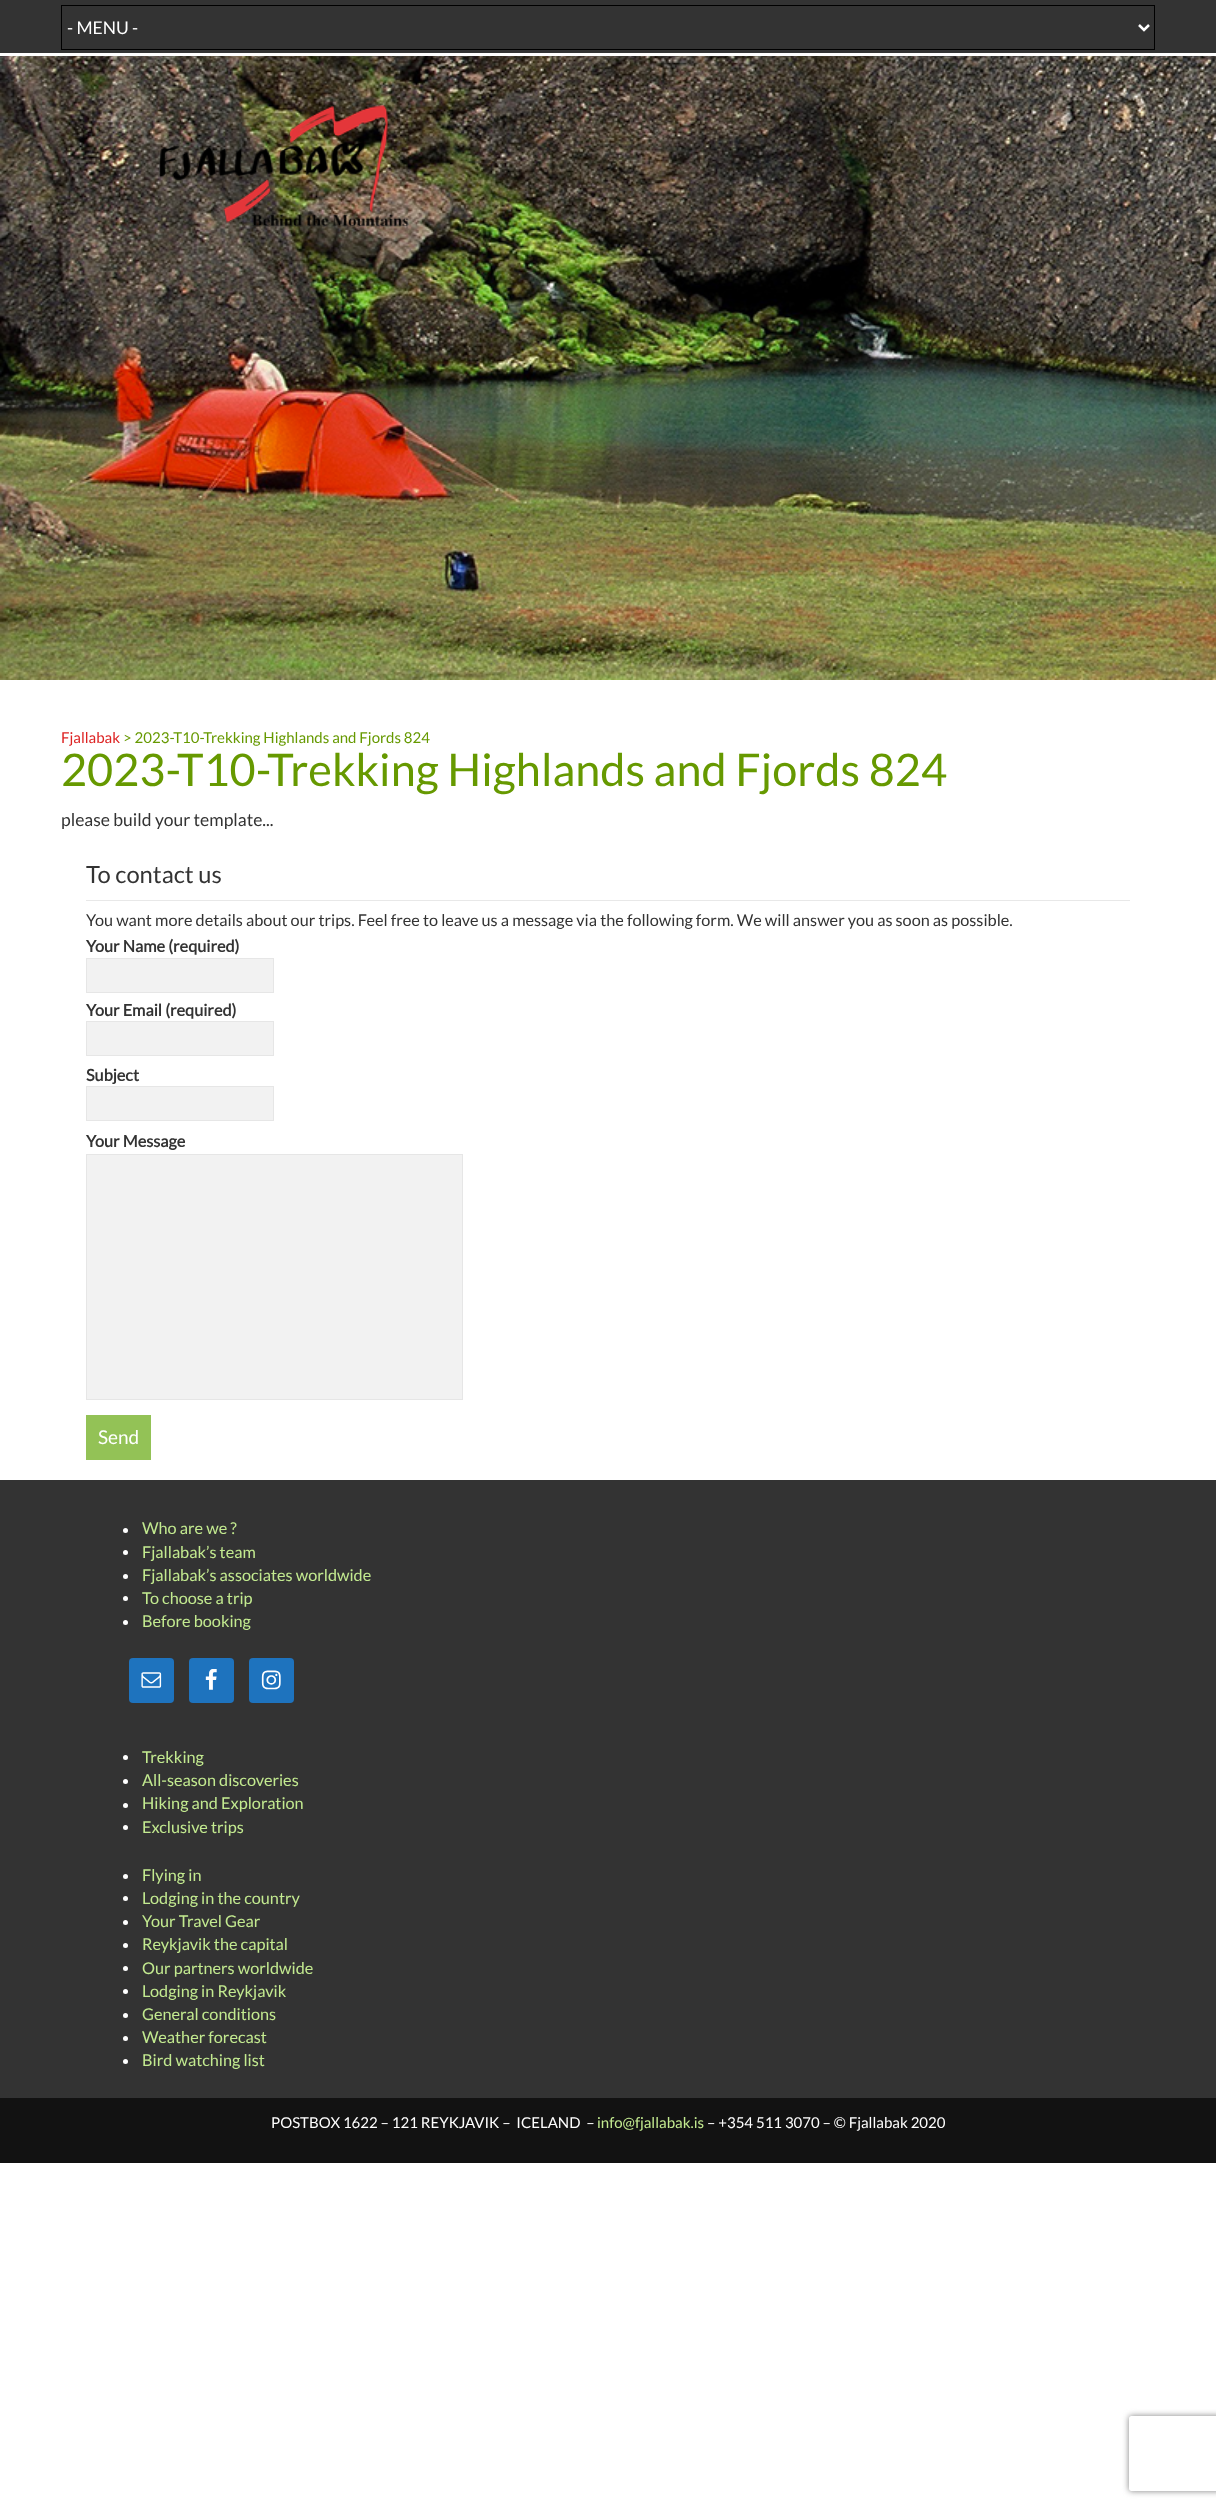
<svg xmlns="http://www.w3.org/2000/svg" width="1216" height="2508" viewBox="0 0 1216 2508">
  <style>
    .t1 { font: 17.5px Lato; fill: #fff; }
    .t2 { font: 15px Lato; fill: #dd2323; }
    .t3 { font: 15px Lato; fill: #690; }
    .t4 { font: 45px Lato; fill: #690; }
    .t5 { font: 17.5px Lato; fill: #333; }
    .t6 { font: 23.75px Lato; fill: #333; }
    .t7 { font: 16.25px Lato; fill: #333; }
    .t8 { font: bold 16.25px Lato; fill: #333; }
    .t9 { font: 19px Lato; fill: #fff; }
    .t10 { font: 16.25px Lato; fill: #c3ea90; }
    .t11 { font: 15px Lato; fill: #fff; }
    .t12 { font: 15px Lato; fill: #c3ea90; }
  </style>
  <defs>
    <clipPath id="clip1"><path d="M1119 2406H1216V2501H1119ZM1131.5 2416H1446.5C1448 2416 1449 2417 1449 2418.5V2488.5C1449 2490 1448 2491 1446.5 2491H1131.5C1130 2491 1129 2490 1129 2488.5V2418.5C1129 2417 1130 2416 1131.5 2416Z" clip-rule="evenodd"/></clipPath>
  </defs>
  <rect width="100%" height="100%" fill="#fff"/>
  <rect x="0" y="0" width="1216" height="53" fill="#333"/>
  <rect x="61.5" y="5.5" width="1093" height="44" fill="none" stroke="#000"/>
  <path d="M1139 25L1144 30L1149 25" fill="none" stroke="#fff" stroke-width="2.5"/>
  <text x="67" y="34" class="t1">- MENU -</text>
  <image x="0" y="56" width="1216" height="624" href="images/1.png"/>
  <image x="158" y="105" width="251" height="123" href="images/2.png"/>
  <text x="61" y="743" class="t2">Fjallabak</text>
  <text x="123" y="743" class="t3">&gt; 2023-T10-Trekking Highlands and Fjords 824</text>
  <text x="61" y="786" class="t4">2023-T10-Trekking Highlands and Fjords 824</text>
  <text x="61" y="826" class="t5">please build your template...</text>
  <rect x="86" y="900" width="1044" height="1" fill="#e8e8e8"/>
  <text x="86" y="883" class="t6">To contact us</text>
  <text x="86" y="926" class="t7">You want more details about our trips. Feel free to leave us a message via the following form. We will answer you as soon as possible.</text>
  <text x="86" y="952" class="t8">Your Name (required)</text>
  <rect x="86.5" y="958.5" width="187" height="34" fill="#f2f2f2" stroke="#e6e6e6"/>
  <text x="86" y="1016" class="t8">Your Email (required)</text>
  <rect x="86.5" y="1021.5" width="187" height="34" fill="#f2f2f2" stroke="#e6e6e6"/>
  <text x="86" y="1081" class="t8">Subject</text>
  <rect x="86.5" y="1086.5" width="187" height="34" fill="#f2f2f2" stroke="#e6e6e6"/>
  <text x="86" y="1147" class="t8">Your Message</text>
  <rect x="86.5" y="1154.5" width="376" height="245" fill="#f2f2f2" stroke="#e6e6e6"/>
  <rect x="86" y="1415" width="65" height="45" fill="#93c256"/>
  <text x="98" y="1444" class="t9">Send</text>
  <rect x="0" y="1480" width="1216" height="618" fill="#333"/>
  <circle cx="125.5" cy="1530.5" r="2.5" fill="#fff"/>
  <text x="142" y="1534" class="t10">Who are we ?</text>
  <circle cx="125.5" cy="1552.5" r="2.5" fill="#fff"/>
  <text x="142" y="1558" class="t10">Fjallabak’s team</text>
  <circle cx="125.5" cy="1576.5" r="2.5" fill="#fff"/>
  <text x="142" y="1581" class="t10">Fjallabak’s associates worldwide</text>
  <circle cx="125.5" cy="1598.5" r="2.5" fill="#fff"/>
  <text x="142" y="1604" class="t10">To choose a trip</text>
  <circle cx="125.5" cy="1622.5" r="2.5" fill="#fff"/>
  <text x="142" y="1627" class="t10">Before booking</text>
  <rect x="129" y="1658" width="45" height="45" rx="4" fill="#1e73be"/>
  <image x="141" y="1672" width="21" height="16" href="images/3.png"/>
  <rect x="189" y="1658" width="45" height="45" rx="4" fill="#1e73be"/>
  <image x="205" y="1669" width="12" height="21" href="images/4.png"/>
  <rect x="249" y="1658" width="45" height="45" rx="4" fill="#1e73be"/>
  <image x="261" y="1670" width="20" height="20" href="images/5.png"/>
  <circle cx="125.5" cy="1757.5" r="2.5" fill="#fff"/>
  <text x="142" y="1763" class="t10">Trekking</text>
  <circle cx="125.5" cy="1781.5" r="2.5" fill="#fff"/>
  <text x="142" y="1786" class="t10">All-season discoveries</text>
  <circle cx="125.5" cy="1805.5" r="2.5" fill="#fff"/>
  <text x="142" y="1809" class="t10">Hiking and Exploration</text>
  <circle cx="125.5" cy="1827.5" r="2.5" fill="#fff"/>
  <text x="142" y="1833" class="t10">Exclusive trips</text>
  <circle cx="125.5" cy="1876.5" r="2.5" fill="#fff"/>
  <text x="142" y="1881" class="t10">Flying in</text>
  <circle cx="125.5" cy="1898.5" r="2.5" fill="#fff"/>
  <text x="142" y="1904" class="t10">Lodging in the country</text>
  <circle cx="125.5" cy="1922.5" r="2.5" fill="#fff"/>
  <text x="142" y="1927" class="t10">Your Travel Gear</text>
  <circle cx="125.5" cy="1945.5" r="2.5" fill="#fff"/>
  <text x="142" y="1950" class="t10">Reykjavik the capital</text>
  <circle cx="125.5" cy="1968.5" r="2.5" fill="#fff"/>
  <text x="142" y="1974" class="t10">Our partners worldwide</text>
  <circle cx="125.5" cy="1991.5" r="2.5" fill="#fff"/>
  <text x="142" y="1997" class="t10">Lodging in Reykjavik</text>
  <circle cx="125.5" cy="2015.5" r="2.5" fill="#fff"/>
  <text x="142" y="2020" class="t10">General conditions</text>
  <circle cx="125.5" cy="2038.5" r="2.5" fill="#fff"/>
  <text x="142" y="2043" class="t10">Weather forecast</text>
  <circle cx="125.5" cy="2061.5" r="2.5" fill="#fff"/>
  <text x="142" y="2066" class="t10">Bird watching list</text>
  <rect x="0" y="2098" width="1216" height="65" fill="#121212"/>
  <text x="271" y="2128" class="t11" xml:space="preserve">POSTBOX 1622 – 121 REYKJAVIK –  ICELAND  –</text>
  <text x="597" y="2128" class="t12">info@fjallabak.is</text>
  <text x="707" y="2128" class="t11">– +354 511 3070 – © Fjallabak 2020</text>
  <g clip-path="url(#clip1)">
    <rect x="1129" y="2416" width="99" height="75" rx="2.5" fill="#808080" filter="blur(3px)"/>
  </g>
</svg>
